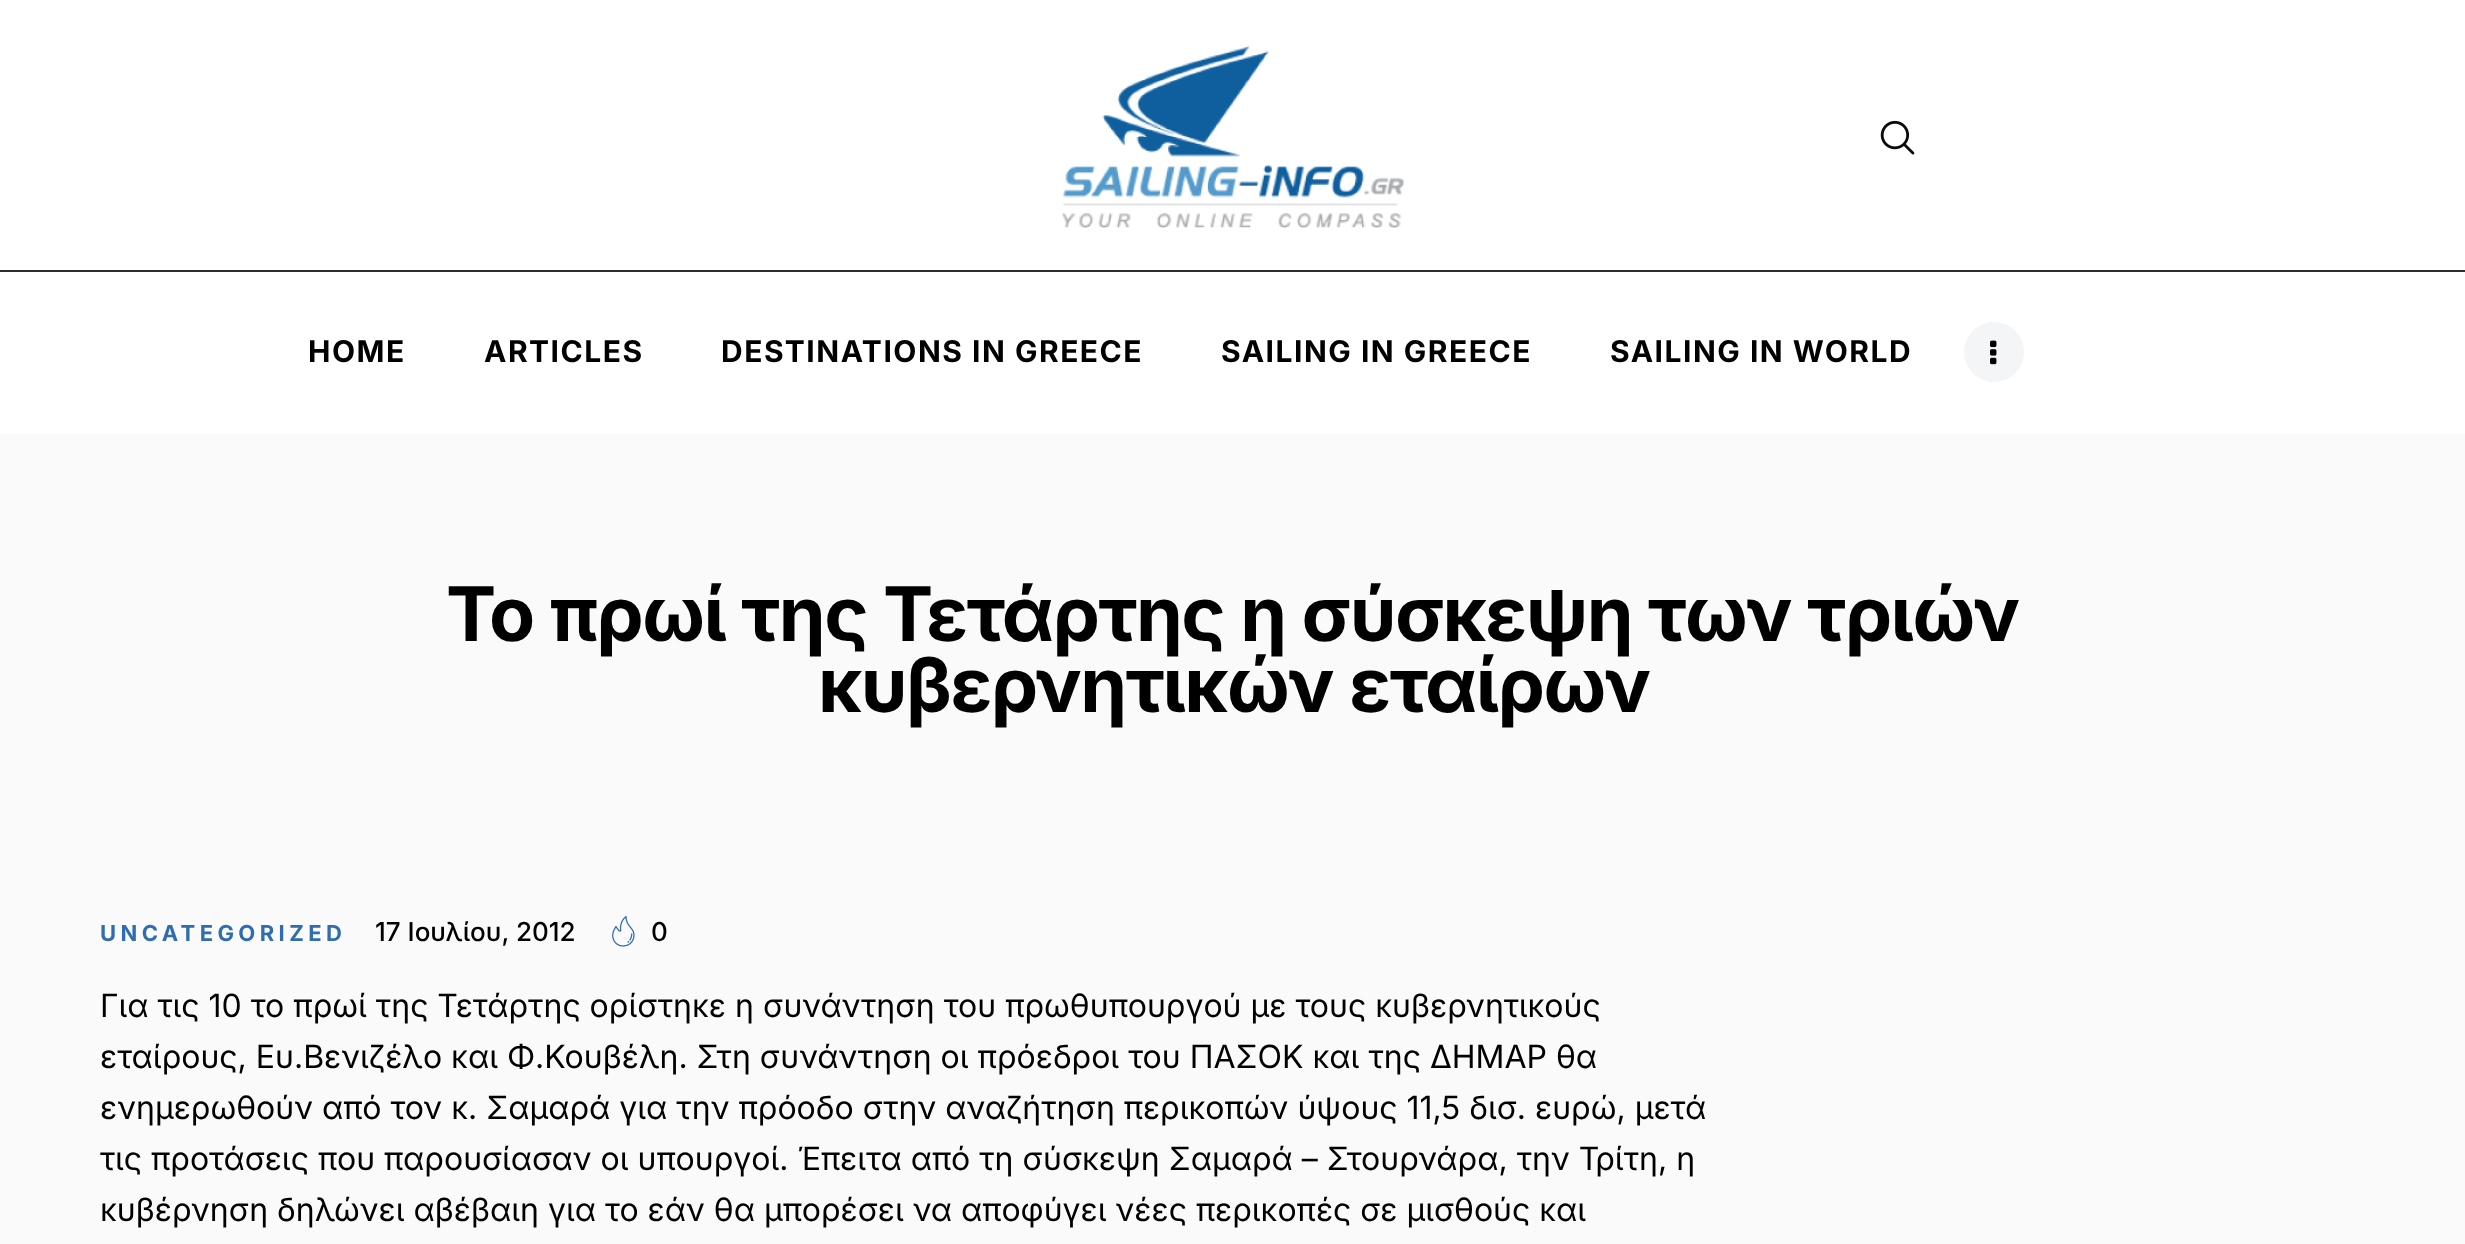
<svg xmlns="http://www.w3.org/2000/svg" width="2465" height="1244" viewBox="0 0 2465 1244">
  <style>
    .t1 { font: bold 30px Inter; letter-spacing: 1.5px; fill: #000; }
    .t2 { font: bold 75.3px Inter; letter-spacing: -1.5px; fill: #000; }
    .t3 { font: bold 22px Inter; letter-spacing: 4.4px; fill: #306cb0; }
    .t4 { font: 500 26px Inter; fill: #000; }
    .t5 { font: 32px Inter; fill: #000; }
  </style>
  <rect width="100%" height="100%" fill="#fff"/>
  <rect x="0" y="270" width="2465" height="2" fill="#2e2c33"/>
  <image x="1062" y="46" width="342" height="182" href="images/1.png"/>
  <image x="1880" y="120" width="35" height="35" href="images/2.png"/>
  <text x="308" y="362" class="t1">HOME</text>
  <text x="484" y="362" class="t1">ARTICLES</text>
  <text x="721" y="362" class="t1">DESTINATIONS IN GREECE</text>
  <text x="1221" y="362" class="t1">SAILING IN GREECE</text>
  <text x="1610" y="362" class="t1">SAILING IN WORLD</text>
  <circle cx="1994" cy="352" r="30" fill="#f3f5f7"/>
  <image x="1990" y="340" width="7" height="25" href="images/3.png"/>
  <image x="0" y="434" width="2465" height="810" href="images/4.png"/>
  <text x="446" y="641" word-spacing="-0.25" class="t2">Το πρωί της Τετάρτης η σύσκεψη των τριών</text>
  <text x="818" y="712" class="t2">κυβερνητικών εταίρων</text>
  <text x="100" y="941" class="t3">UNCATEGORIZED</text>
  <text x="375" y="941" class="t4">17 Ιουλίου, 2012</text>
  <image x="612" y="916" width="23" height="31" href="images/5.png"/>
  <text x="651" y="941" class="t4">0</text>
  <text x="100" y="1017" class="t5">Για τις 10 το πρωί της Τετάρτης ορίστηκε η συνάντηση του πρωθυπουργού με τους κυβερνητικούς</text>
  <text x="100" y="1068" class="t5">εταίρους, Ευ.Βενιζέλο και Φ.Κουβέλη. Στη συνάντηση οι πρόεδροι του ΠΑΣΟΚ και της ΔΗΜΑΡ θα</text>
  <text x="100" y="1119" class="t5">ενημερωθούν από τον κ. Σαμαρά για την πρόοδο στην αναζήτηση περικοπών ύψους 11,5 δισ. ευρώ, μετά</text>
  <text x="100" y="1170" class="t5">τις προτάσεις που παρουσίασαν οι υπουργοί. Έπειτα από τη σύσκεψη Σαμαρά – Στουρνάρα, την Τρίτη, η</text>
  <text x="100" y="1221" class="t5">κυβέρνηση δηλώνει αβέβαιη για το εάν θα μπορέσει να αποφύγει νέες περικοπές σε μισθούς και</text>
</svg>
